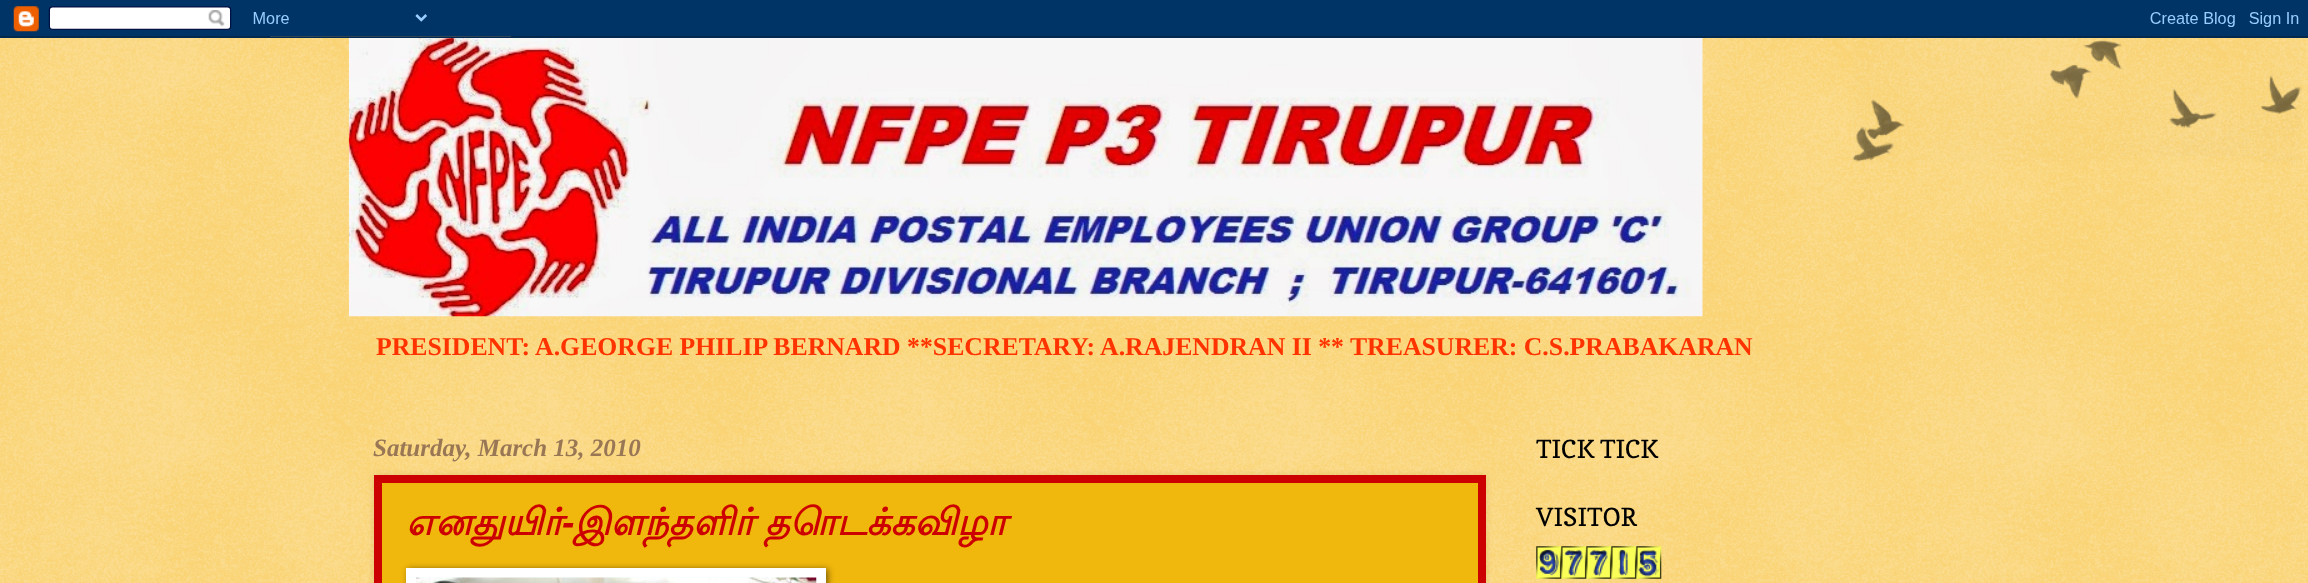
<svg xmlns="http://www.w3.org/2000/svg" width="2308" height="583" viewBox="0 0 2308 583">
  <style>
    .t1 { font: bold 25.75px Liberation Serif; fill: #f30; }
    .t2 { font: italic bold 25px Liberation Serif; fill: #975; }
    .t3 { font: italic bold 37.5px Lohit Tamil; fill: #c00; }
    .t4 { font: italic bold 37.5px Liberation Sans; fill: #c00; }
    .t5 { font: 25px Copse; fill: #000; }
  </style>
  <rect width="100%" height="100%" fill="#f6b410"/>
  <image x="0" y="36" width="2308" height="547" href="images/1.png"/>
  <image x="0" y="0" width="2308" height="38" href="images/2.png"/>
  <image x="1852" y="40" width="450" height="122" href="images/3.png"/>
  <image x="348" y="38" width="1355" height="279" href="images/4.png"/>
  <text x="376" y="355" class="t1">PRESIDENT: A.GEORGE PHILIP BERNARD **SECRETARY: A.RAJENDRAN II ** TREASURER: C.S.PRABAKARAN</text>
  <text x="373" y="456" class="t2">Saturday, March 13, 2010</text>
  <rect x="374" y="475" width="1112" height="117" fill="#0000001a" filter="blur(3px)"/>
  <rect x="378" y="479" width="1104" height="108" fill="#f0b70c" stroke="#c00" stroke-width="8"/>
  <text x="406" y="535" class="t3">எனதுயிர்</text>
  <text x="562" y="535" class="t4">-</text>
  <text x="574" y="535" class="t3">இளந்தளிர்</text>
  <text x="765" y="535" class="t3">தொடக்கவிழா</text>
  <rect x="408" y="569" width="420" height="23" fill="#00000080" filter="blur(3px)"/>
  <rect x="406" y="568" width="420" height="15" fill="#fff"/>
  <image x="416" y="577" width="401" height="6" href="images/5.png"/>
  <text x="1536" y="458" class="t5">TICK TICK</text>
  <text x="1536" y="526" class="t5">VISITOR</text>
  <image x="1536" y="546" width="126" height="33" href="images/6.png"/>
</svg>
